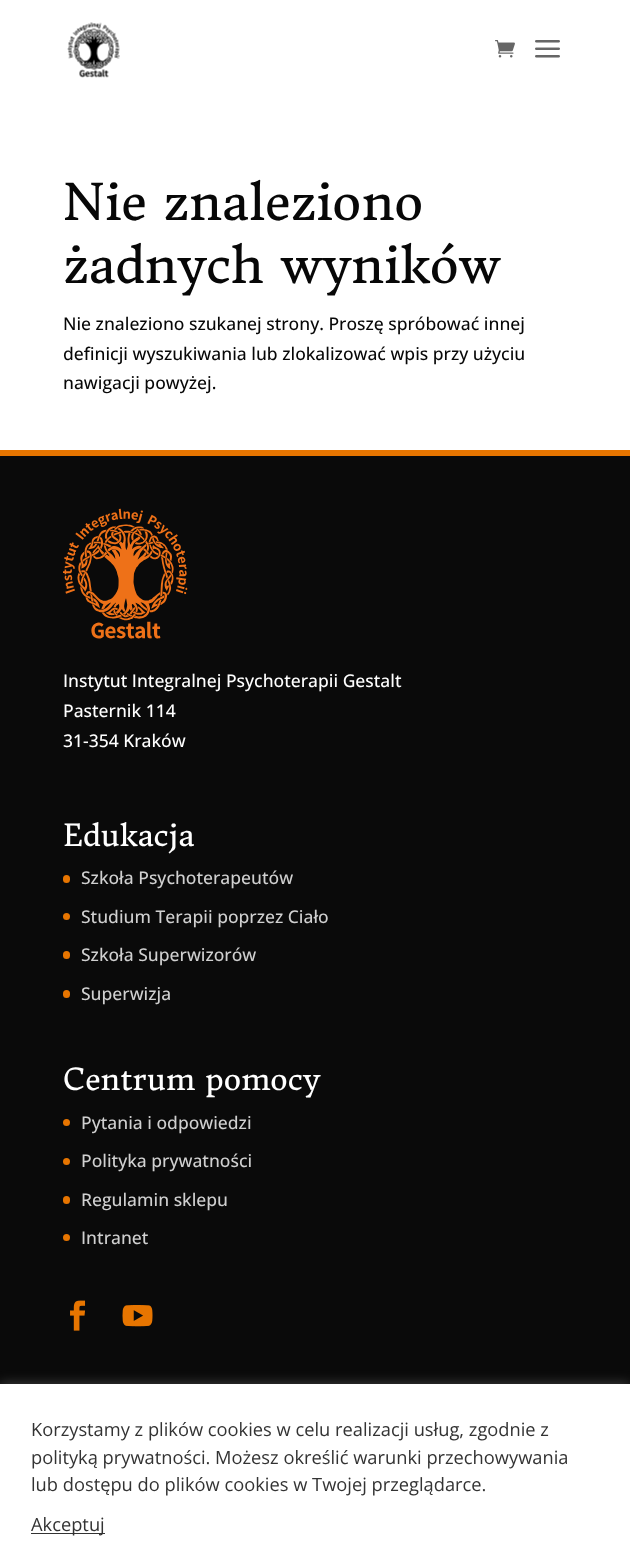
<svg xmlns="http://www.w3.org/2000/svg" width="630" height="1568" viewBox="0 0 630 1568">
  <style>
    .t1 { font: 50px Donegal One; fill: #070707; }
    .t2 { font: 500 17.5px Open Sans; fill: #070707; }
    .t3 { font: 500 17.5px Open Sans; fill: #fff; }
    .t4 { font: 30px Donegal One; fill: #fff; }
    .t5 { font: 500 17.5px Open Sans; fill: #d0d0d0; }
    .t6 { font: 18.3px Open Sans; fill: #333; }
  </style>
  <rect width="100%" height="100%" fill="#fff"/>
  <image x="67" y="22" width="53" height="56" href="images/1.png"/>
  <image x="495" y="40" width="20" height="18" href="images/2.png"/>
  <image x="535" y="40" width="25" height="18" href="images/3.png"/>
  <text x="63" y="220" class="t1">Nie znaleziono</text>
  <text x="63" y="283" class="t1">żadnych wyników</text>
  <text x="63" y="330" class="t2">Nie znaleziono szukanej strony. Proszę spróbować innej</text>
  <text x="63" y="360" class="t2">definicji wyszukiwania lub zlokalizować wpis przy użyciu</text>
  <text x="63" y="389" class="t2">nawigacji powyżej.</text>
  <rect x="0" y="456" width="630" height="928" fill="#0a0a0a"/>
  <rect x="0" y="450" width="630" height="6" fill="#e77500"/>
  <image x="63" y="508" width="125" height="131" href="images/4.png"/>
  <text x="63" y="687" class="t3">Instytut Integralnej Psychoterapii Gestalt</text>
  <text x="63" y="717" class="t3">Pasternik 114</text>
  <text x="63" y="747" class="t3">31-354 Kraków</text>
  <text x="63" y="846" class="t4">Edukacja</text>
  <rect x="63" y="875" width="7" height="8" rx="3.5" fill="#e77500"/>
  <text x="81" y="884" class="t5">Szkoła Psychoterapeutów</text>
  <circle cx="66.5" cy="916.5" r="3.5" fill="#e77500"/>
  <text x="81" y="923" class="t5">Studium Terapii poprzez Ciało</text>
  <rect x="63" y="951" width="7" height="8" rx="3.5" fill="#e77500"/>
  <text x="81" y="961" class="t5">Szkoła Superwizorów</text>
  <rect x="63" y="990" width="7" height="8" rx="3.5" fill="#e77500"/>
  <text x="81" y="1000" class="t5">Superwizja</text>
  <text x="63" y="1090" class="t4">Centrum pomocy</text>
  <circle cx="66.5" cy="1122.5" r="3.5" fill="#e77500"/>
  <text x="81" y="1129" class="t5">Pytania i odpowiedzi</text>
  <circle cx="66.5" cy="1161.5" r="3.5" fill="#e77500"/>
  <text x="81" y="1167" class="t5">Polityka prywatności</text>
  <rect x="63" y="1196" width="7" height="8" rx="3.5" fill="#e77500"/>
  <text x="81" y="1206" class="t5">Regulamin sklepu</text>
  <circle cx="66.5" cy="1237.5" r="3.5" fill="#e77500"/>
  <text x="81" y="1244" class="t5">Intranet</text>
  <image x="70" y="1300" width="16" height="31" href="images/5.png"/>
  <image x="122" y="1305" width="31" height="22" href="images/6.png"/>
  <rect x="0" y="1383" width="630" height="185" fill="#acabab4d" filter="blur(6px)"/>
  <rect x="0" y="1384" width="630" height="184" fill="#fff"/>
  <text x="31" y="1436" class="t6">Korzystamy z plików cookies w celu realizacji usług, zgodnie z</text>
  <text x="31" y="1464" class="t6">polityką prywatności. Możesz określić warunki przechowywania</text>
  <text x="31" y="1491" class="t6">lub dostępu do plików cookies w Twojej przeglądarce.</text>
  <rect x="31" y="1533" width="74" height="1" fill="#333"/>
  <text x="31" y="1531" class="t6">Akceptuj</text>
</svg>
